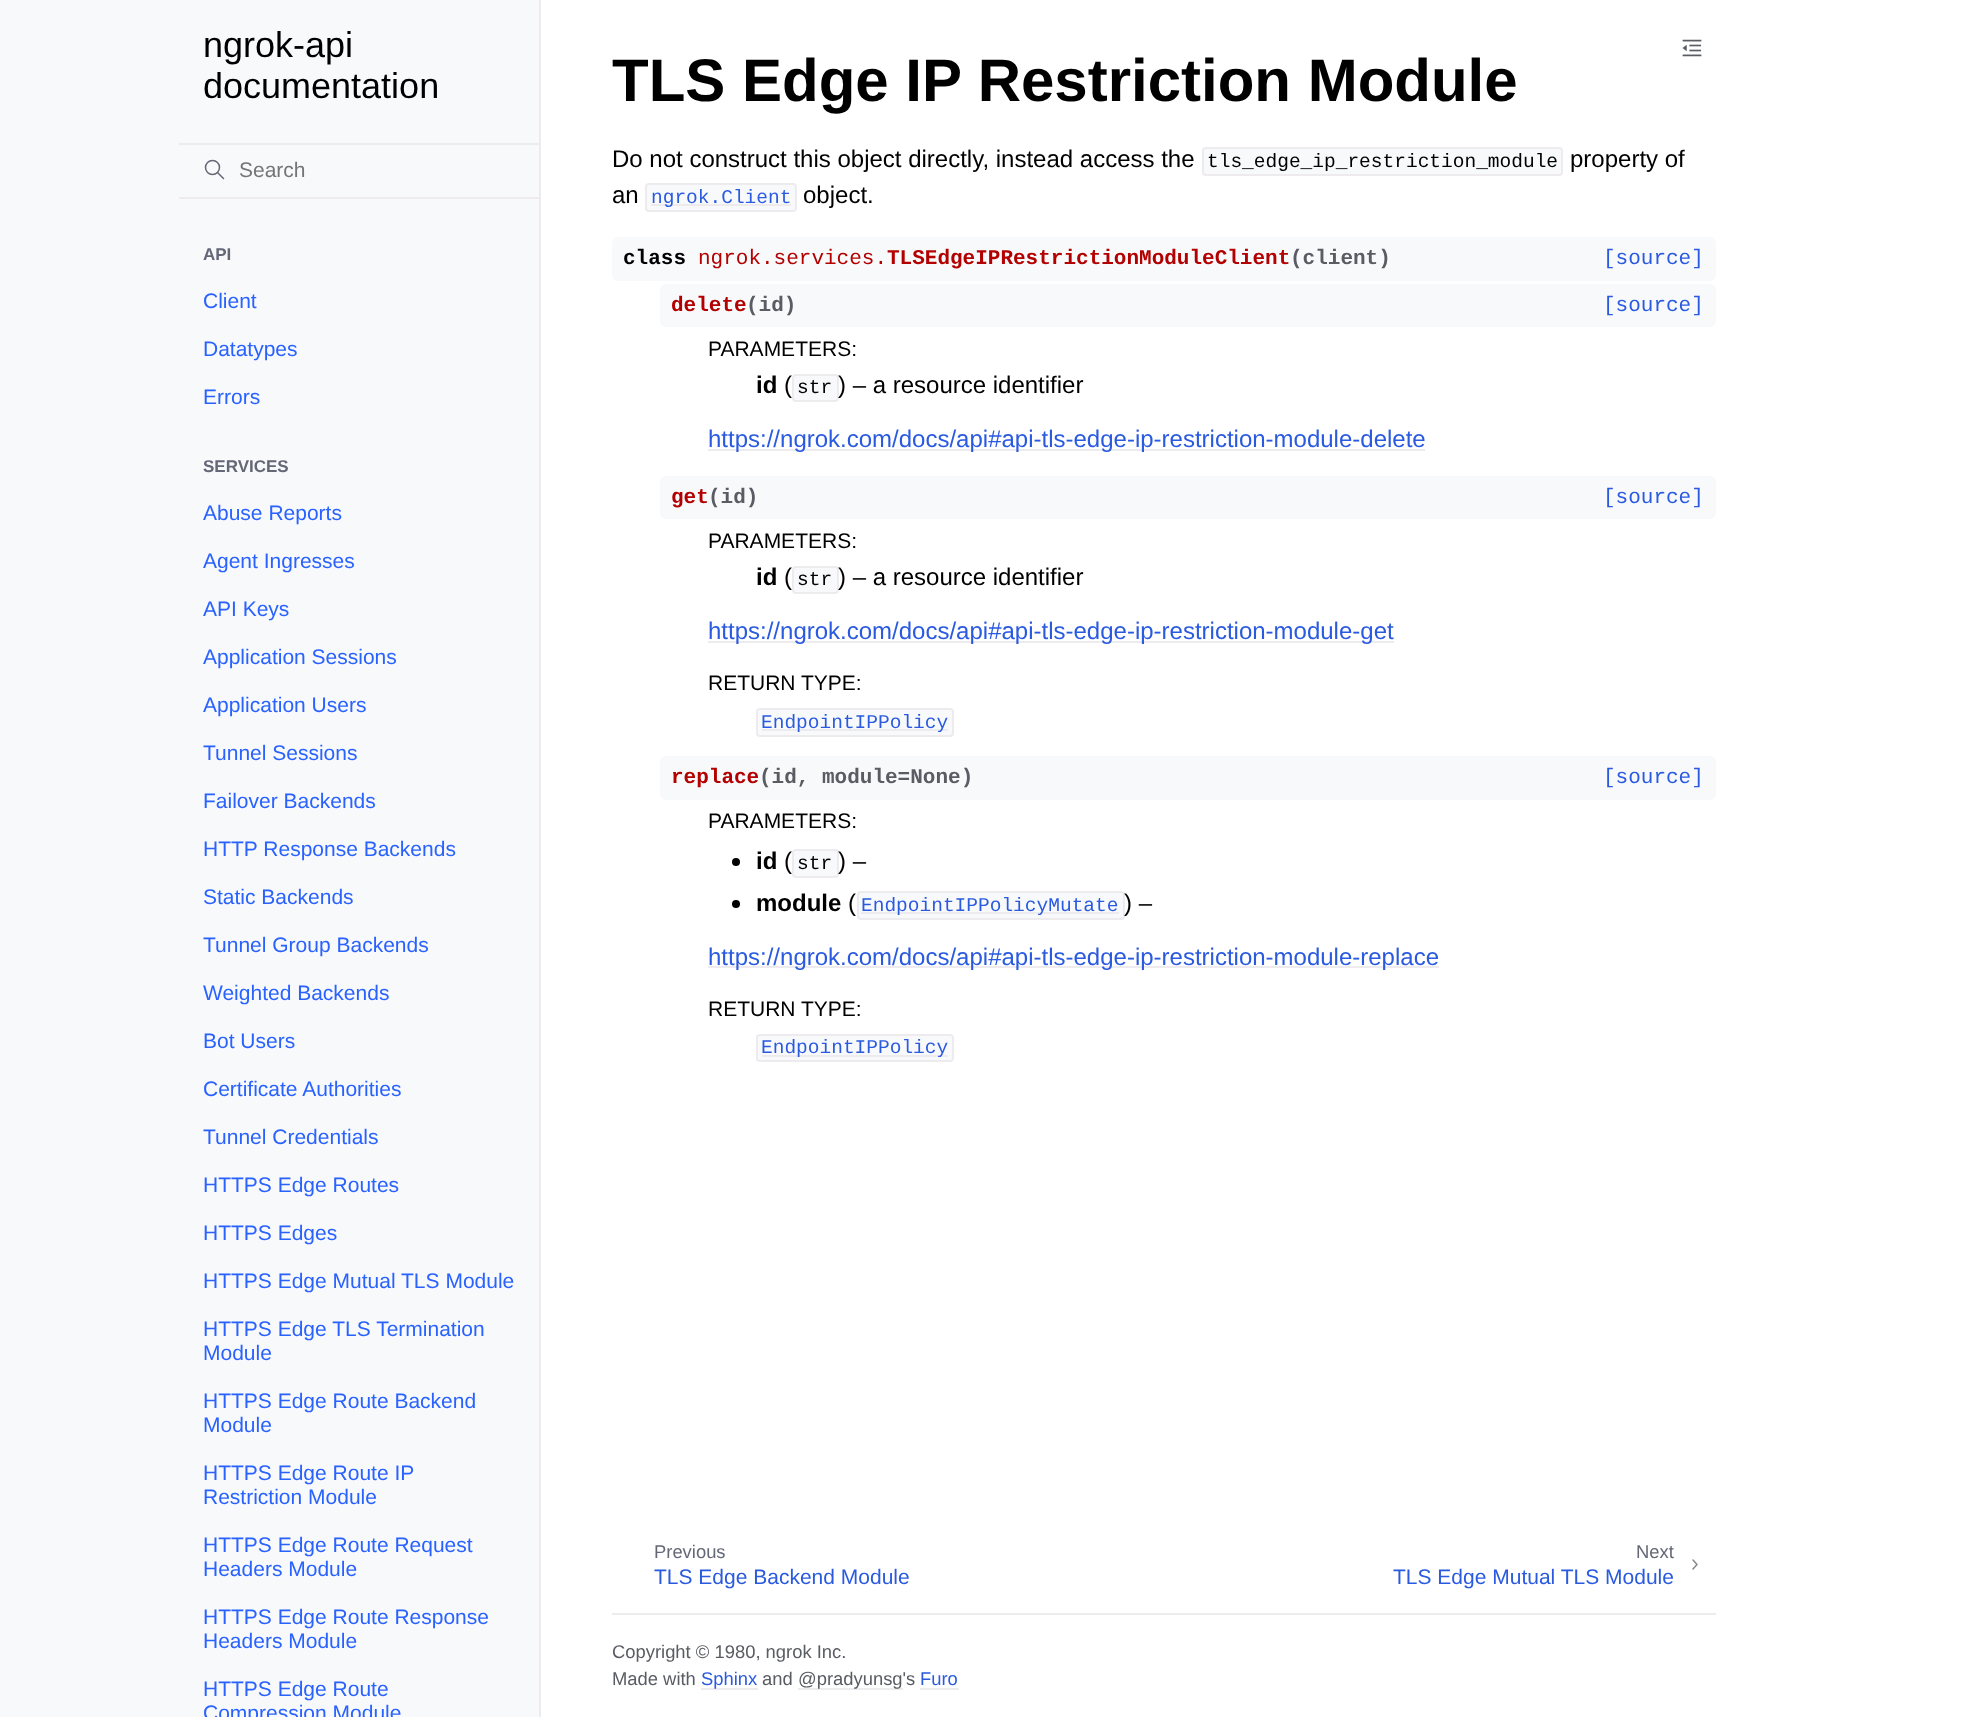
<svg xmlns="http://www.w3.org/2000/svg" width="1967" height="1717" viewBox="0 0 1967 1717">
  <style>
    .t1 { font: 36px Liberation Sans; fill: #000; }
    .t2 { font: 21px Liberation Sans; fill: #757575; }
    .t3 { font: bold 17px Liberation Sans; fill: #646776; }
    .t4 { font: 21px Liberation Sans; fill: #2962ff; }
    .t5 { font: bold 60px Liberation Sans; fill: #000; }
    .t6 { font: 24px Liberation Sans; fill: #000; }
    .t7 { font: 19.5px Liberation Mono; fill: #000; }
    .t8 { font: 19.5px Liberation Mono; fill: #2a5adf; }
    .t9 { font: bold 21px Liberation Mono; fill: #000; }
    .t10 { font: 21px Liberation Mono; fill: #b30000; }
    .t11 { font: bold 21px Liberation Mono; fill: #b30000; }
    .t12 { font: bold 21px Liberation Mono; fill: #5a5c63; }
    .t13 { font: 21px Liberation Mono; fill: #2a5adf; }
    .t14 { font: 21px Liberation Sans; fill: #000; }
    .t15 { font: bold 24px Liberation Sans; fill: #000; }
    .t16 { font: 24px Liberation Sans; fill: #2a5adf; }
    .t17 { font: 18.4px Liberation Sans; fill: #646776; }
    .t18 { font: 21px Liberation Sans; fill: #2a5adf; }
    .t19 { font: 18.4px Liberation Sans; fill: #5a5c63; }
    .t20 { font: 18.4px Liberation Sans; fill: #2a5adf; }
  </style>
  <rect width="100%" height="100%" fill="#fff"/>
  <rect x="0" y="0" width="539" height="1717" fill="#f8f9fb"/>
  <rect x="539" y="0" width="2" height="1717" fill="#eeebee"/>
  <text x="203" y="57" class="t1">ngrok-api</text>
  <text x="203" y="98" class="t1">documentation</text>
  <circle cx="212.5" cy="167.5" r="7" fill="none" stroke="#646776" stroke-width="1.5"/>
  <path d="M223.5 178.5L217.5 172.5" fill="none" stroke="#646776" stroke-width="1.5" stroke-linecap="round" stroke-linejoin="round"/>
  <rect x="179" y="143" width="360" height="2" fill="#eeebee"/>
  <rect x="179" y="197" width="360" height="2" fill="#eeebee"/>
  <text x="239" y="177" class="t2">Search</text>
  <text x="203" y="260" class="t3">API</text>
  <text x="203" y="308" class="t4">Client</text>
  <text x="203" y="356" class="t4">Datatypes</text>
  <text x="203" y="404" class="t4">Errors</text>
  <text x="203" y="472" class="t3">SERVICES</text>
  <text x="203" y="520" class="t4">Abuse Reports</text>
  <text x="203" y="568" class="t4">Agent Ingresses</text>
  <text x="203" y="616" class="t4">API Keys</text>
  <text x="203" y="664" class="t4">Application Sessions</text>
  <text x="203" y="712" class="t4">Application Users</text>
  <text x="203" y="760" class="t4">Tunnel Sessions</text>
  <text x="203" y="808" class="t4">Failover Backends</text>
  <text x="203" y="856" class="t4">HTTP Response Backends</text>
  <text x="203" y="904" class="t4">Static Backends</text>
  <text x="203" y="952" class="t4">Tunnel Group Backends</text>
  <text x="203" y="1000" class="t4">Weighted Backends</text>
  <text x="203" y="1048" class="t4">Bot Users</text>
  <text x="203" y="1096" class="t4">Certificate Authorities</text>
  <text x="203" y="1144" class="t4">Tunnel Credentials</text>
  <text x="203" y="1192" class="t4">HTTPS Edge Routes</text>
  <text x="203" y="1240" class="t4">HTTPS Edges</text>
  <text x="203" y="1288" class="t4">HTTPS Edge Mutual TLS Module</text>
  <text x="203" y="1336" class="t4">HTTPS Edge TLS Termination</text>
  <text x="203" y="1360" class="t4">Module</text>
  <text x="203" y="1408" class="t4">HTTPS Edge Route Backend</text>
  <text x="203" y="1432" class="t4">Module</text>
  <text x="203" y="1480" class="t4">HTTPS Edge Route IP</text>
  <text x="203" y="1504" class="t4">Restriction Module</text>
  <text x="203" y="1552" class="t4">HTTPS Edge Route Request</text>
  <text x="203" y="1576" class="t4">Headers Module</text>
  <text x="203" y="1624" class="t4">HTTPS Edge Route Response</text>
  <text x="203" y="1648" class="t4">Headers Module</text>
  <text x="203" y="1696" class="t4">HTTPS Edge Route</text>
  <text x="203" y="1720" class="t4">Compression Module</text>
  <image x="1682" y="39" width="20" height="18" href="images/1.png"/>
  <text x="612" y="101" class="t5">TLS Edge IP Restriction Module</text>
  <text x="612" y="167" class="t6">Do not construct this object directly, instead access the</text>
  <rect x="1203" y="148" width="359" height="27" rx="3" fill="#f8f9fb" stroke="#eeebee" stroke-width="2"/>
  <text x="1207" y="167" class="t7">tls_edge_ip_restriction_module</text>
  <text x="1570" y="167" class="t6">property of</text>
  <text x="612" y="203" class="t6">an</text>
  <rect x="646" y="184" width="150" height="27" rx="3" fill="#f8f9fb" stroke="#eeebee" stroke-width="2"/>
  <rect x="651" y="204" width="140" height="2" fill="#eeebee"/>
  <text x="651" y="203" class="t8">ngrok.Client</text>
  <text x="803" y="203" class="t6">object.</text>
  <rect x="612" y="237" width="1104" height="44" rx="6" fill="#f8f9fb"/>
  <text x="623" y="264" class="t9">class</text>
  <text x="698" y="264" class="t10">ngrok.services.</text>
  <text x="887" y="264" class="t11">TLSEdgeIPRestrictionModuleClient</text>
  <text x="1290" y="264" class="t12">(client)</text>
  <text x="1603" y="264" class="t13">[source]</text>
  <rect x="660" y="284" width="1056" height="43" rx="6" fill="#f8f9fb"/>
  <text x="671" y="311" class="t11">delete</text>
  <text x="746" y="311" class="t12">(id)</text>
  <text x="1603" y="311" class="t13">[source]</text>
  <text x="708" y="356" class="t14">PARAMETERS:</text>
  <text x="756" y="393" class="t15">id</text>
  <text x="784" y="393" class="t6">(</text>
  <rect x="793" y="375" width="45" height="26" rx="3" fill="#f8f9fb" stroke="#eeebee" stroke-width="2"/>
  <text x="797" y="393" class="t7">str</text>
  <text x="838" y="393" class="t6">) – a resource identifier</text>
  <rect x="708" y="449" width="717" height="2" fill="#eeebee"/>
  <text x="708" y="447" class="t16">https://ngrok.com/docs/api#api-tls-edge-ip-restriction-module-delete</text>
  <rect x="660" y="476" width="1056" height="43" rx="6" fill="#f8f9fb"/>
  <text x="671" y="503" class="t11">get</text>
  <text x="708" y="503" class="t12">(id)</text>
  <text x="1603" y="503" class="t13">[source]</text>
  <text x="708" y="548" class="t14">PARAMETERS:</text>
  <text x="756" y="585" class="t15">id</text>
  <text x="784" y="585" class="t6">(</text>
  <rect x="793" y="567" width="45" height="26" rx="3" fill="#f8f9fb" stroke="#eeebee" stroke-width="2"/>
  <text x="797" y="585" class="t7">str</text>
  <text x="838" y="585" class="t6">) – a resource identifier</text>
  <rect x="708" y="641" width="686" height="2" fill="#eeebee"/>
  <text x="708" y="639" class="t16">https://ngrok.com/docs/api#api-tls-edge-ip-restriction-module-get</text>
  <text x="708" y="690" class="t14">RETURN TYPE:</text>
  <rect x="757" y="709" width="196" height="27" rx="3" fill="#f8f9fb" stroke="#eeebee" stroke-width="2"/>
  <rect x="762" y="729" width="186" height="2" fill="#eeebee"/>
  <text x="761" y="728" class="t8">EndpointIPPolicy</text>
  <rect x="660" y="756" width="1056" height="44" rx="6" fill="#f8f9fb"/>
  <text x="671" y="783" class="t11">replace</text>
  <text x="759" y="783" class="t12">(id, module=None)</text>
  <text x="1603" y="783" class="t13">[source]</text>
  <text x="708" y="828" class="t14">PARAMETERS:</text>
  <circle cx="736" cy="862" r="4" fill="#000"/>
  <text x="756" y="869" class="t15">id</text>
  <text x="784" y="869" class="t6">(</text>
  <rect x="793" y="850" width="45" height="27" rx="3" fill="#f8f9fb" stroke="#eeebee" stroke-width="2"/>
  <text x="797" y="869" class="t7">str</text>
  <text x="838" y="869" class="t6">) –</text>
  <circle cx="736" cy="904" r="4" fill="#000"/>
  <text x="756" y="911" class="t15">module</text>
  <text x="848" y="911" class="t6">(</text>
  <rect x="858" y="892" width="266" height="27" rx="3" fill="#f8f9fb" stroke="#eeebee" stroke-width="2"/>
  <rect x="861" y="912" width="258" height="2" fill="#eeebee"/>
  <text x="861" y="911" class="t8">EndpointIPPolicyMutate</text>
  <text x="1124" y="911" class="t6">) –</text>
  <rect x="708" y="966" width="731" height="2" fill="#eeebee"/>
  <text x="708" y="965" class="t16">https://ngrok.com/docs/api#api-tls-edge-ip-restriction-module-replace</text>
  <text x="708" y="1016" class="t14">RETURN TYPE:</text>
  <rect x="757" y="1035" width="196" height="26" rx="3" fill="#f8f9fb" stroke="#eeebee" stroke-width="2"/>
  <rect x="762" y="1055" width="186" height="2" fill="#eeebee"/>
  <text x="761" y="1053" class="t8">EndpointIPPolicy</text>
  <text x="654" y="1558" class="t17">Previous</text>
  <text x="654" y="1584" class="t18">TLS Edge Backend Module</text>
  <text x="1636" y="1558" class="t17">Next</text>
  <text x="1393" y="1584" class="t18">TLS Edge Mutual TLS Module</text>
  <path d="M1693 1569L1697 1564.5L1693 1560" fill="none" stroke="#878787" stroke-width="1.5" stroke-linecap="round" stroke-linejoin="round"/>
  <rect x="612" y="1613" width="1104" height="2" fill="#eeebee"/>
  <text x="612" y="1658" class="t19">Copyright © 1980, ngrok Inc.</text>
  <text x="612" y="1685" class="t19">Made with</text>
  <rect x="701" y="1688" width="57" height="2" fill="#eeebee"/>
  <text x="701" y="1685" class="t20">Sphinx</text>
  <text x="762" y="1685" class="t19">and</text>
  <rect x="798" y="1688" width="105" height="2" fill="#eeebee"/>
  <text x="798" y="1685" class="t19">@pradyunsg's</text>
  <text x="920" y="1685" class="t20">Furo</text>
  <rect x="920" y="1688" width="39" height="2" fill="#eeebee"/>
</svg>
